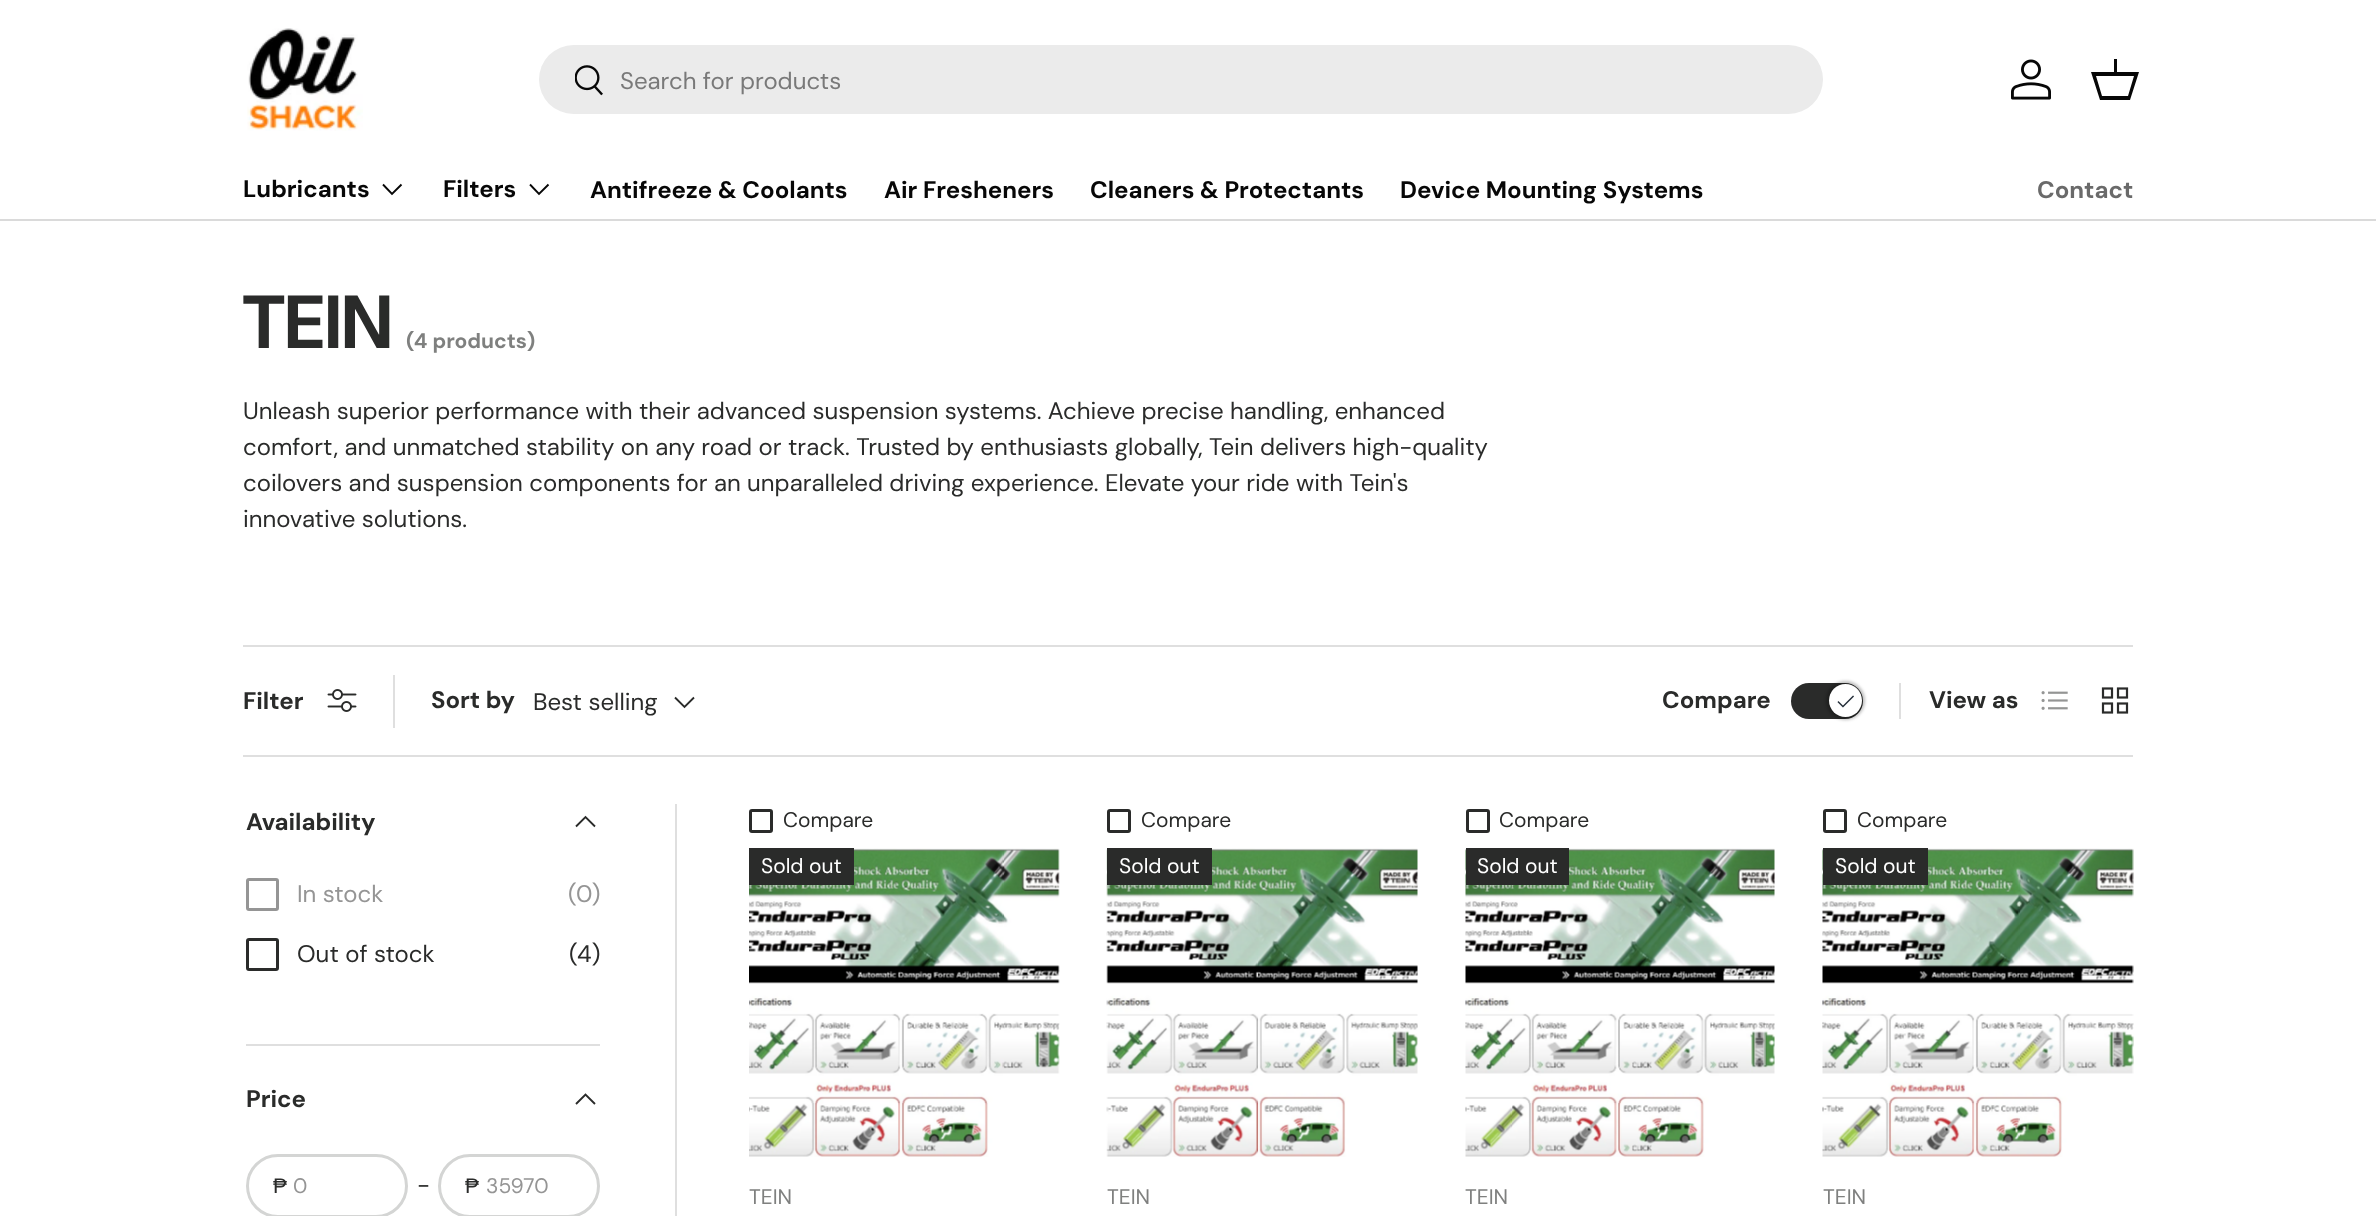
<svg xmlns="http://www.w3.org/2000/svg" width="2376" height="1216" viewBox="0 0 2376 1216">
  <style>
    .t1 { font: 24px DM Sans; fill: #797979; }
    .t2 { font: bold 24px 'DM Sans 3'; fill: #070707; }
    .t3 { font: bold 24px 'DM Sans 3'; fill: #6a6a6a; }
    .t4 { font: bold 75px DM Sans; fill: #2a2b2a; }
    .t5 { font: bold 21px 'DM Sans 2'; fill: #7f807f; }
    .t6 { font: 24px DM Sans; fill: #2a2b2a; }
    .t7 { font: bold 24px 'DM Sans 3'; fill: #2a2b2a; }
    .t8 { font: 24px DM Sans; fill: #959595; }
    .t9 { font: 21px Liberation Sans; fill: #2a2b2a; }
    .t10 { font: 21px 'DM Sans 2'; fill: #959595; }
    .t11 { font: 21px 'DM Sans 2'; fill: #2a2b2a; }
    .t12 { font: 21px 'DM Sans 3'; fill: #fff; }
    .t13 { font: 21px 'DM Sans 2'; fill: #7f807f; }
  </style>
  <rect width="100%" height="100%" fill="#fff"/>
  <rect x="0" y="219" width="2376" height="2" fill="#dadada"/>
  <image x="247" y="28" width="116" height="103" href="images/1.png"/>
  <rect x="539" y="45" width="1284" height="69" rx="34.5" fill="#ebebeb"/>
  <image x="575" y="65" width="28" height="31" href="images/2.png"/>
  <text x="620" y="89" class="t1">Search for products</text>
  <image x="2011" y="59" width="40" height="41" href="images/3.png"/>
  <path d="M2114 72V59H2117V72H2139L2130 100H2100L2091 72ZM2096 76L2102 96H2128L2134 76Z" fill="#070707"/>
  <text x="243" y="197" class="t2">Lubricants</text>
  <path d="M401.5 184.5L392 194L383 184.5" fill="none" stroke="#070707" stroke-width="1.9"/>
  <text x="443" y="197" class="t2">Filters</text>
  <path d="M548.5 184.5L539 194L530 184.5" fill="none" stroke="#070707" stroke-width="1.9"/>
  <text x="590" y="198" class="t2">Antifreeze &amp; Coolants</text>
  <text x="884" y="198" class="t2">Air Fresheners</text>
  <text x="1090" y="198" class="t2">Cleaners &amp; Protectants</text>
  <text x="1400" y="198" class="t2">Device Mounting Systems</text>
  <text x="2037" y="198" class="t3">Contact</text>
  <text x="243" y="348" class="t4">TEIN</text>
  <text x="406" y="348" class="t5">(4 products)</text>
  <text x="243" y="419" class="t6">Unleash superior performance with their advanced suspension systems. Achieve precise handling, enhanced</text>
  <text x="243" y="455" class="t6">comfort, and unmatched stability on any road or track. Trusted by enthusiasts globally, Tein delivers high-quality</text>
  <text x="243" y="491" class="t6">coilovers and suspension components for an unparalleled driving experience. Elevate your ride with Tein's</text>
  <text x="243" y="527" class="t6">innovative solutions.</text>
  <rect x="243" y="645" width="1890" height="2" fill="#dfdfdf"/>
  <rect x="243" y="755" width="1890" height="2" fill="#dfdfdf"/>
  <text x="243" y="709" class="t7">Filter</text>
  <image x="327" y="689" width="30" height="23" href="images/4.png"/>
  <rect x="393" y="675" width="2" height="53" fill="#dfdfdf"/>
  <text x="431" y="708" class="t7">Sort by</text>
  <text x="533" y="710" class="t6">Best selling</text>
  <path d="M694 697.5L684.5 707L675 697.5" fill="none" stroke="#2a2b2a" stroke-width="1.9"/>
  <rect x="1791" y="683" width="72" height="36" rx="18" fill="#2a2b2a"/>
  <rect x="1826" y="681" width="39" height="39" rx="19.5" fill="#00000040" filter="blur(1.5px)"/>
  <circle cx="1845.5" cy="700.5" r="16.5" fill="#fff"/>
  <image x="1837" y="695" width="17" height="13" href="images/5.png"/>
  <text x="1662" y="708" class="t7">Compare</text>
  <rect x="1899" y="683" width="2" height="36" fill="#dfdfdf"/>
  <text x="1929" y="708" class="t7">View as</text>
  <image x="2041" y="691" width="27" height="19" href="images/6.png"/>
  <image x="2101" y="687" width="28" height="27" href="images/7.png"/>
  <rect x="675" y="804" width="2" height="412" fill="#dfdfdf"/>
  <rect x="246" y="1044" width="354" height="2" fill="#dfdfdf"/>
  <text x="246" y="830" class="t7">Availability</text>
  <path d="M595 826.5L585.5 817L576 826.5" fill="none" stroke="#2a2b2a" stroke-width="1.9"/>
  <rect x="247.5" y="879.5" width="30" height="30" rx="1.5" fill="none" stroke="#959595" stroke-width="3"/>
  <text x="297" y="902" class="t8">In stock</text>
  <text x="568" y="902" class="t8">(0)</text>
  <rect x="247.5" y="939.5" width="30" height="30" rx="1.5" fill="none" stroke="#2a2b2a" stroke-width="3"/>
  <text x="297" y="962" class="t6">Out of stock</text>
  <text x="569" y="962" class="t6">(4)</text>
  <text x="246" y="1107" class="t7">Price</text>
  <path d="M595 1104L585.5 1094.5L576 1104" fill="none" stroke="#2a2b2a" stroke-width="1.9"/>
  <rect x="247.5" y="1155.5" width="159" height="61" rx="30.5" fill="none" stroke="#d4d5d4" stroke-width="3"/>
  <text x="273" y="1193" class="t9">₱</text>
  <text x="293" y="1193" class="t10">0</text>
  <text x="417" y="1193" class="t6">-</text>
  <rect x="439.5" y="1155.5" width="159" height="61" rx="30.5" fill="none" stroke="#d4d5d4" stroke-width="3"/>
  <text x="465" y="1193" class="t9">₱</text>
  <text x="486" y="1193" class="t10">35970</text>
  <rect x="750.5" y="810.5" width="21" height="21" rx="1.5" fill="none" stroke="#2a2b2a" stroke-width="3"/>
  <text x="783" y="827" class="t11">Compare</text>
  <image x="749" y="848" width="311" height="309" href="images/8.png"/>
  <rect x="749" y="848" width="105" height="37" fill="#2a2b2a"/>
  <text x="761" y="873" class="t12">Sold out</text>
  <text x="749" y="1204" class="t13">TEIN</text>
  <rect x="1108.5" y="810.5" width="21" height="21" rx="1.5" fill="none" stroke="#2a2b2a" stroke-width="3"/>
  <text x="1141" y="827" class="t11">Compare</text>
  <image x="1106" y="848" width="312" height="309" href="images/9.png"/>
  <rect x="1107" y="848" width="105" height="37" fill="#2a2b2a"/>
  <text x="1119" y="873" class="t12">Sold out</text>
  <text x="1107" y="1204" class="t13">TEIN</text>
  <rect x="1467.5" y="810.5" width="21" height="21" rx="1.5" fill="none" stroke="#2a2b2a" stroke-width="3"/>
  <text x="1499" y="827" class="t11">Compare</text>
  <image x="1465" y="848" width="310" height="309" href="images/10.png"/>
  <rect x="1466" y="848" width="103" height="37" fill="#2a2b2a"/>
  <text x="1477" y="873" class="t12">Sold out</text>
  <text x="1465" y="1204" class="t13">TEIN</text>
  <rect x="1824.5" y="810.5" width="21" height="21" rx="1.5" fill="none" stroke="#2a2b2a" stroke-width="3"/>
  <text x="1857" y="827" class="t11">Compare</text>
  <image x="1822" y="848" width="312" height="309" href="images/11.png"/>
  <rect x="1823" y="848" width="105" height="37" fill="#2a2b2a"/>
  <text x="1835" y="873" class="t12">Sold out</text>
  <text x="1823" y="1204" class="t13">TEIN</text>
</svg>
